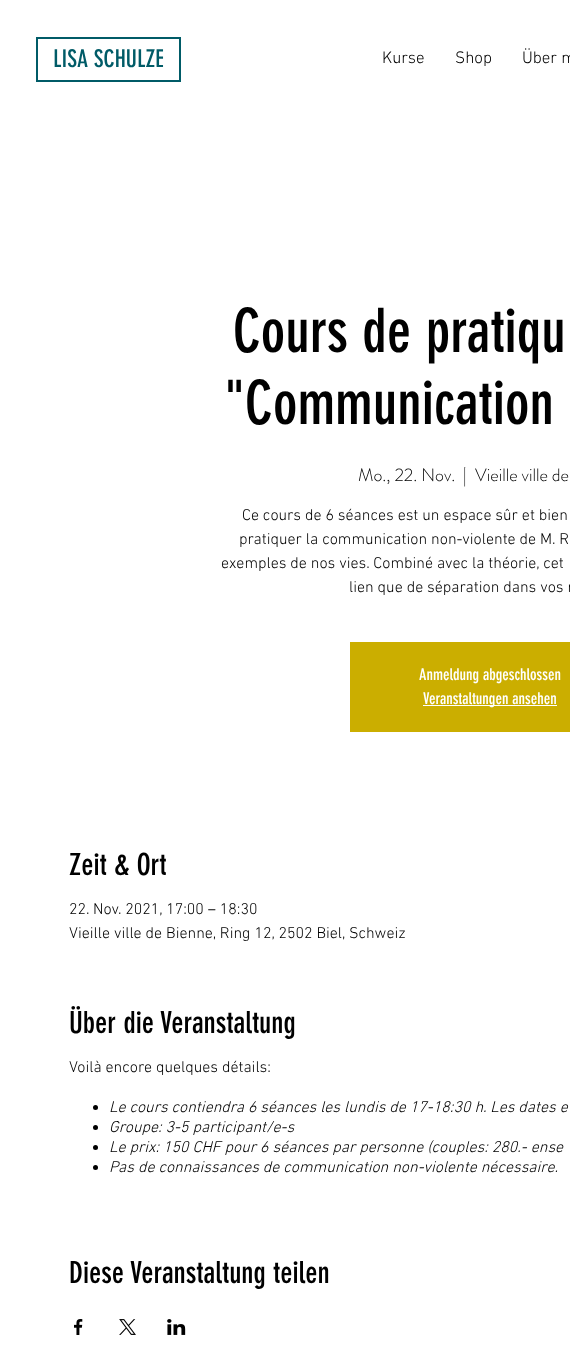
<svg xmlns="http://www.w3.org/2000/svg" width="570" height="1369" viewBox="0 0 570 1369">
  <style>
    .t1 { font: 24px 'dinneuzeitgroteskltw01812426'; fill: #005b67; }
    .t2 { font: 300 17px 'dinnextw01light'; fill: #000; }
    .t3 { font: 60px 'dinneuzeitgroteskltw01812426'; fill: #000; }
    .t4 { font: 300 18px 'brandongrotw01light'; fill: #000; }
    .t5 { font: 300 16px 'dinnextw01light'; fill: #000; }
    .t6 { font: 16px 'dinneuzeitgroteskltw01812426'; fill: #fff; }
    .t7 { font: 30px 'dinneuzeitgroteskltw01812426'; fill: #000; }
    .t8 { font: italic 300 16px 'dinnextw01light'; fill: #000; }
  </style>
  <rect width="100%" height="100%" fill="#fff"/>
  <rect x="37" y="38" width="143" height="43" fill="none" stroke="#005b67" stroke-width="2"/>
  <text x="53" y="67" class="t1">LISA SCHULZE</text>
  <text x="382" y="63" class="t2">Kurse</text>
  <text x="455" y="63" class="t2">Shop</text>
  <text x="522" y="63" class="t2">Über m</text>
  <text x="233" y="352" class="t3">Cours de pratiqu</text>
  <text x="224" y="424" class="t3">"Communication</text>
  <text x="358" y="481" class="t4">Mo., 22. Nov.</text>
  <text x="463" y="481" class="t4">|</text>
  <text x="475" y="481" class="t4">Vieille ville de</text>
  <text x="242" y="520" class="t5">Ce cours de 6 séances est un espace sûr et bien</text>
  <text x="239" y="544" class="t5">pratiquer la communication non-violente de M. R</text>
  <text x="221" y="568" class="t5">exemples de nos vies. Combiné avec la théorie, cet</text>
  <text x="349" y="592" class="t5">lien que de séparation dans vos r</text>
  <rect x="350" y="642" width="220" height="90" fill="#cbae00"/>
  <text x="419" y="680" class="t6">Anmeldung abgeschlossen</text>
  <rect x="423" y="705" width="134" height="1" fill="#fff"/>
  <text x="423" y="704" class="t6">Veranstaltungen ansehen</text>
  <text x="69" y="875" class="t7">Zeit &amp; Ort</text>
  <text x="69" y="914" class="t5">22. Nov. 2021, 17:00 – 18:30</text>
  <text x="69" y="938" class="t5">Vieille ville de Bienne, Ring 12, 2502 Biel, Schweiz</text>
  <text x="69" y="1033" class="t7">Über die Veranstaltung</text>
  <text x="69" y="1072" class="t5">Voilà encore quelques détails:</text>
  <circle cx="95.5" cy="1107.5" r="2.5" fill="#000"/>
  <text x="109" y="1112" class="t8">Le cours contiendra 6 séances les lundis de 17-18:30 h. Les dates e</text>
  <circle cx="95.5" cy="1127.5" r="2.5" fill="#000"/>
  <text x="109" y="1132" class="t8">Groupe: 3-5 participant/e-s</text>
  <circle cx="95.5" cy="1147.5" r="2.5" fill="#000"/>
  <text x="109" y="1152" class="t8">Le prix: 150 CHF pour 6 séances par personne (couples: 280.- ense</text>
  <circle cx="95.5" cy="1167.5" r="2.5" fill="#000"/>
  <text x="109" y="1172" class="t8">Pas de connaissances de communication non-violente nécessaire.</text>
  <text x="69" y="1283" class="t7">Diese Veranstaltung teilen</text>
  <image x="74" y="1319" width="9" height="16" href="images/1.png"/>
  <image x="119" y="1319" width="17" height="16" href="images/2.png"/>
  <image x="167" y="1319" width="19" height="16" href="images/3.png"/>
</svg>
